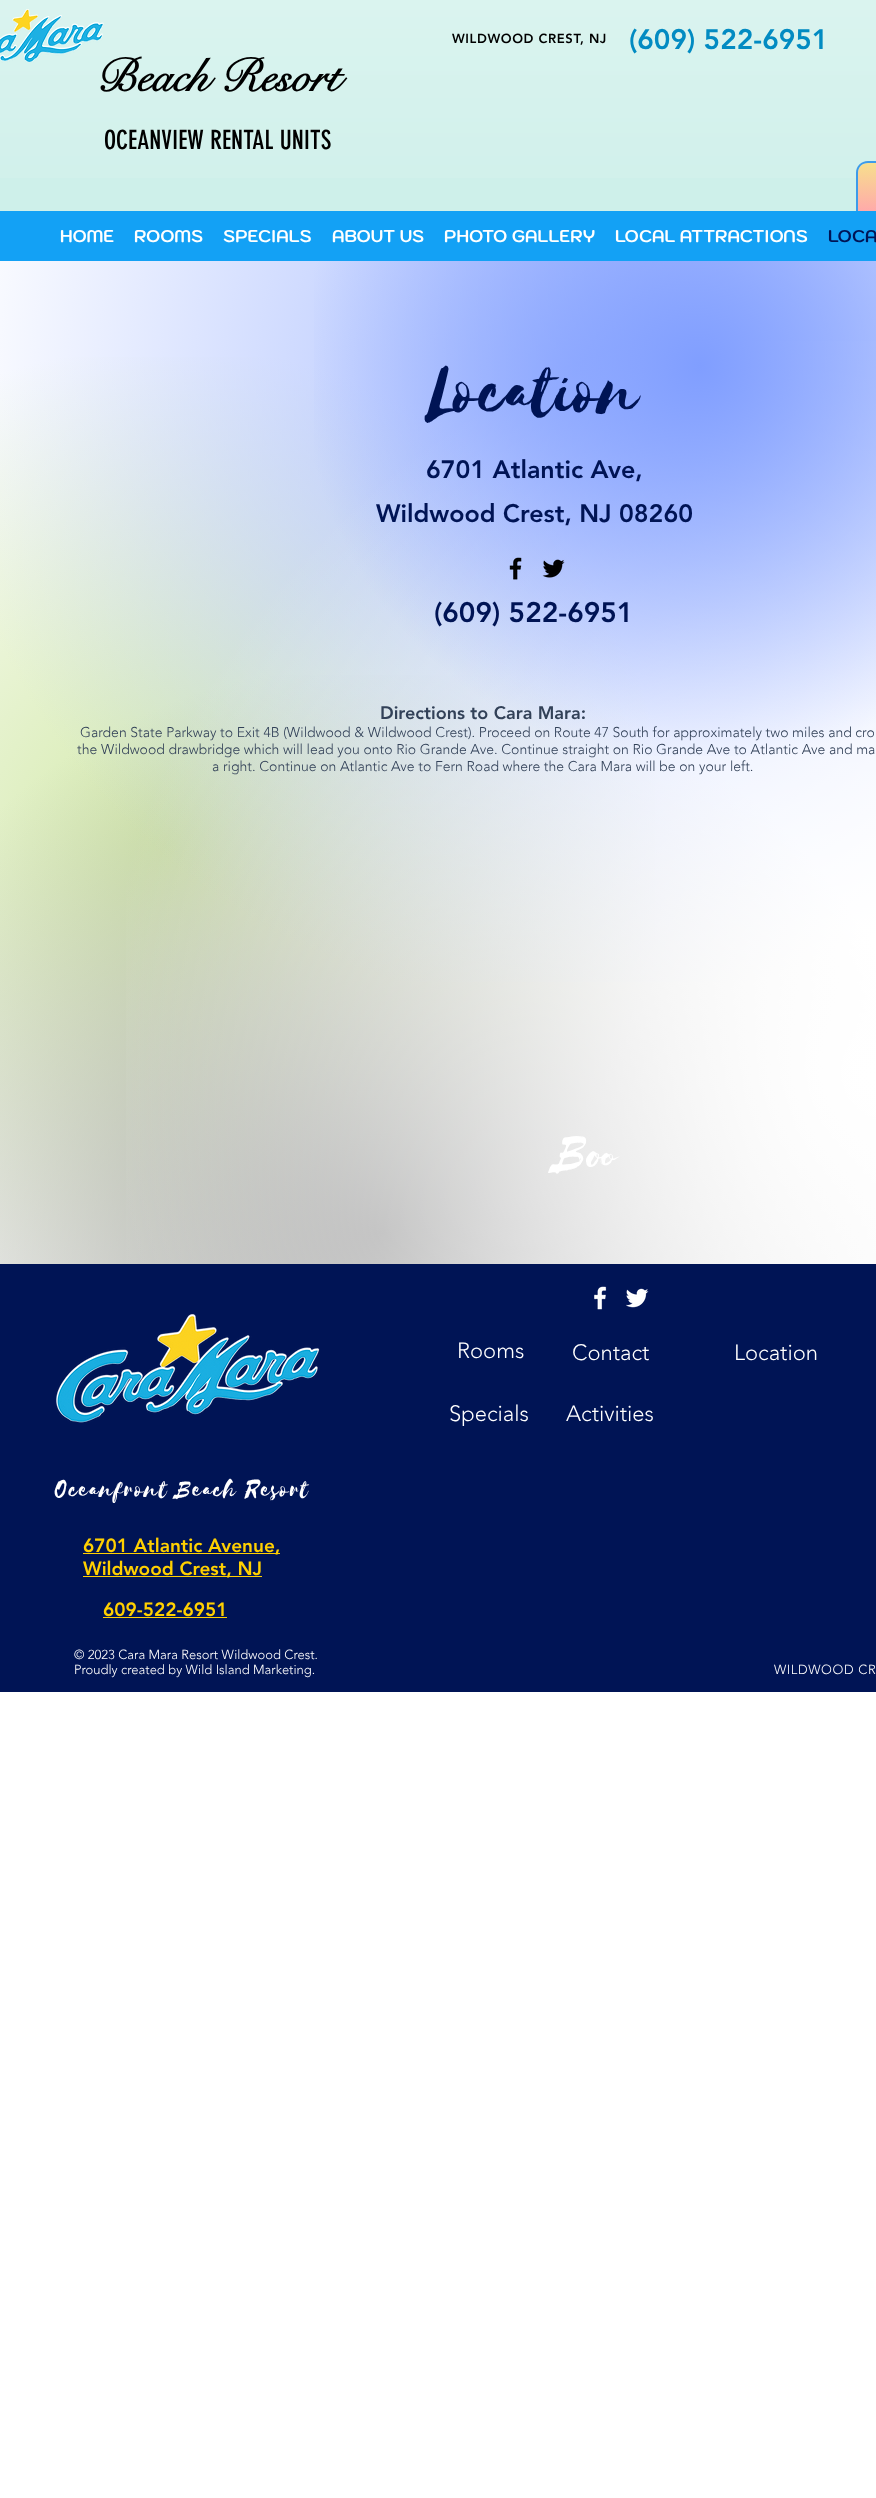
<svg xmlns="http://www.w3.org/2000/svg" width="876" height="2498" viewBox="0 0 876 2498">
  <style>
    .t1 { font: 900 13px 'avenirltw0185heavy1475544'; letter-spacing: 0.6px; fill: #000; }
    .t2 { font: 900 28px 'avenirltw0185heavy1475544'; fill: #028bc2; }
    .t3 { font: bold 46px 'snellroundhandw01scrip'; fill: #000; }
    .t4 { font: 26px 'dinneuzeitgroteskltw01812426'; fill: #000; }
    .t5 { font: bold 17px Kodchasan; fill: #fff; }
    .t6 { font: bold 17px Kodchasan; fill: #001455; }
    .t7 { font: 80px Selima; fill: #001455; }
    .t8 { font: 900 25px 'avenirltw0185heavy1475544'; fill: #001455; }
    .t9 { font: 900 28px 'avenirltw0185heavy1475544'; fill: #001455; }
    .t10 { font: 900 18px 'avenirltw0185heavy1475544'; fill: #324158; }
    .t11 { font: 300 14px 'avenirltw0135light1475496'; fill: #324158; }
    .t12 { font: 57px Selima; fill: #fff; }
    .t13 { font: 300 22px 'avenirltw0135light1475496'; fill: #fff; }
    .t14 { font: 27px Selima; letter-spacing: 1.35px; fill: #fff; }
    .t15 { font: 900 19px 'avenirltw0185heavy1475544'; fill: #ffd000; }
    .t16 { font: 300 13px 'avenirltw0135light1475496'; fill: #fff; }
    .t17 { font: 300 13px 'avenirltw0135light1475496'; letter-spacing: 0.6px; fill: #fff; }
  </style>
  <defs>
    <linearGradient id="g1" gradientUnits="userSpaceOnUse" x1="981" y1="163" x2="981" y2="211"><stop offset="0" stop-color="#f7df8d"/><stop offset="1" stop-color="#faa"/></linearGradient>
    <radialGradient id="g2" gradientUnits="userSpaceOnUse" cx="167" cy="846" r="1002"><stop offset="0" stop-color="#d3e9aa"/><stop offset="0.5" stop-color="#fff"/></radialGradient>
    <radialGradient id="g3" gradientUnits="userSpaceOnUse" cx="380" cy="1233" r="1142"><stop offset="0" stop-color="#a8a8a8"/><stop offset="0.5" stop-color="#a8a8a8" stop-opacity="0"/></radialGradient>
    <radialGradient id="g4" gradientUnits="userSpaceOnUse" cx="576" cy="372" r="1062"><stop offset="0" stop-color="#aabeff"/><stop offset="0.6" stop-color="#aabeff" stop-opacity="0"/></radialGradient>
    <radialGradient id="g5" gradientUnits="userSpaceOnUse" cx="872" cy="1077" r="1194"><stop offset="0" stop-color="#fff"/><stop offset="0.65" stop-color="#fff" stop-opacity="0"/></radialGradient>
    <radialGradient id="g6" gradientUnits="userSpaceOnUse" cx="700" cy="366" r="1139"><stop offset="0" stop-color="#809eff"/><stop offset="0.35" stop-color="#809eff" stop-opacity="0"/></radialGradient>
  </defs>
  <rect width="100%" height="100%" fill="#fff"/>
  <rect x="0" y="0" width="876" height="211" fill="#cef0ea"/>
  <image x="0" y="0" width="876" height="178" href="images/1.png"/>
  <image x="0" y="15" width="104" height="48" href="images/3.png"/>
  <image x="12" y="9" width="26" height="23" href="images/2.png"/>
  <text x="452" y="43" class="t1">WILDWOOD CREST, NJ</text>
  <text x="629" y="49" class="t2">(609) 522-6951</text>
  <text x="96" y="91" class="t3">Beach Resort</text>
  <text x="104" y="149" class="t4">OCEANVIEW RENTAL UNITS</text>
  <path d="M868 163H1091C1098 163 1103 167 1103 173V211H858V173C858 167 862 163 868 163Z" fill="url(#g1)"/>
  <path d="M868 161H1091C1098 161 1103 166 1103 173V211H856V173C856 166 861 161 868 161ZM868 163H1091C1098 163 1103 167 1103 173V211H858V173C858 167 862 163 868 163Z" fill="#3d9be9" fill-rule="evenodd"/>
  <rect x="0" y="211" width="876" height="50" fill="#13a1f5"/>
  <text x="60" y="242" class="t5">HOME</text>
  <text x="134" y="242" class="t5">ROOMS</text>
  <text x="223" y="242" class="t5">SPECIALS</text>
  <text x="332" y="242" class="t5">ABOUT US</text>
  <text x="444" y="242" class="t5">PHOTO GALLERY</text>
  <text x="615" y="242" class="t5">LOCAL ATTRACTIONS</text>
  <text x="828" y="242" class="t6">LOCA</text>
  <rect x="0" y="357" width="655" height="907" fill="url(#g2)"/>
  <rect x="0" y="675" width="876" height="589" fill="url(#g3)"/>
  <rect x="0" y="261" width="876" height="721" fill="url(#g4)"/>
  <rect x="126" y="341" width="750" height="923" fill="url(#g5)"/>
  <rect x="314" y="261" width="562" height="495" fill="url(#g6)"/>
  <text x="429" y="414" class="t7">Location</text>
  <text x="426" y="478" class="t8">6701 Atlantic Ave,</text>
  <text x="376" y="522" class="t8">Wildwood Crest, NJ 08260</text>
  <image x="509" y="557" width="13" height="23" href="images/4.png"/>
  <image x="542" y="559" width="23" height="19" href="images/5.png"/>
  <text x="434" y="622" class="t9">(609) 522-6951</text>
  <text x="380" y="719" class="t10">Directions to Cara Mara:</text>
  <text x="80" y="737" class="t11">Garden State Parkway to Exit 4B (Wildwood &amp; Wildwood Crest). Proceed on Route 47 South for approximately two miles and cro</text>
  <text x="77" y="754" class="t11">the Wildwood drawbridge which will lead you onto Rio Grande Ave. Continue straight on Rio Grande Ave to Atlantic Ave and ma</text>
  <text x="212" y="771" class="t11">a right. Continue on Atlantic Ave to Fern Road where the Cara Mara will be on your left.</text>
  <text x="556" y="1169" class="t12">Boo</text>
  <rect x="0" y="1264" width="876" height="428" fill="#001455"/>
  <image x="594" y="1286" width="13" height="24" href="images/6.png"/>
  <image x="626" y="1288" width="23" height="20" href="images/7.png"/>
  <image x="56" y="1314" width="264" height="109" href="images/8.png"/>
  <text x="457" y="1358" class="t13">Rooms</text>
  <text x="572" y="1360" class="t13">Contact</text>
  <text x="734" y="1360" class="t13">Location</text>
  <text x="449" y="1421" class="t13">Specials</text>
  <text x="566" y="1421" class="t13">Activities</text>
  <text x="55" y="1497" class="t14">Oceanfront Beach Resort</text>
  <rect x="83" y="1553" width="197" height="1" fill="#ffd000"/>
  <text x="83" y="1552" class="t15">6701 Atlantic Avenue,</text>
  <rect x="83" y="1576" width="179" height="1" fill="#ffd000"/>
  <text x="83" y="1575" class="t15">Wildwood Crest, NJ</text>
  <text x="103" y="1616" class="t15">609-522-6951</text>
  <rect x="103" y="1617" width="124" height="1" fill="#ffd000"/>
  <text x="74" y="1659" class="t16">© 2023 Cara Mara Resort Wildwood Crest.</text>
  <text x="74" y="1674" class="t16">Proudly created by Wild Island Marketing.</text>
  <text x="774" y="1674" class="t17">WILDWOOD CR</text>
</svg>
